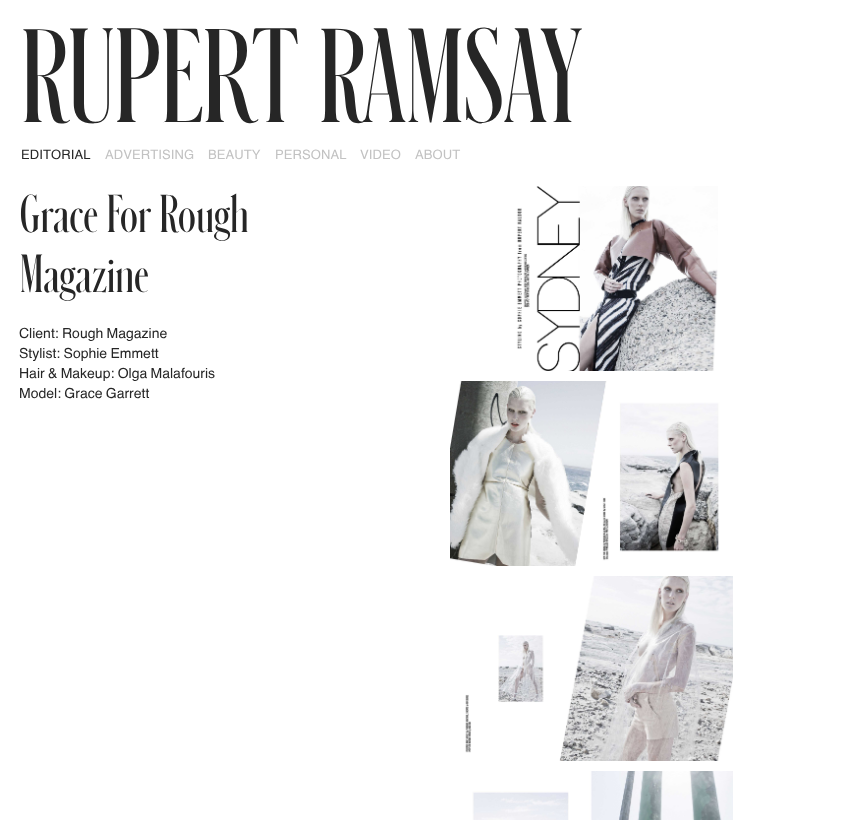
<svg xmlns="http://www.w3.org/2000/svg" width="845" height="820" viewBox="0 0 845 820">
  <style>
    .t1 { font: 300 125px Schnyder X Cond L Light; fill: #262626; }
    .t2 { font: 13px 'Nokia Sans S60'; letter-spacing: 0.1px; fill: #262626; }
    .t3 { font: 13px 'Nokia Sans S60'; letter-spacing: 0.1px; fill: #c2c2c2; }
    .t4 { font: 300 50px Schnyder X Cond L Light; fill: #262626; }
    .t5 { font: 14px 'Nokia Sans S60'; fill: #262626; }
  </style>
  <rect width="100%" height="100%" fill="#fff"/>
  <text x="21" y="122" class="t1">RUPERT RAMSAY</text>
  <text x="21" y="159" class="t2">EDITORIAL</text>
  <text x="105" y="159" class="t3">ADVERTISING</text>
  <text x="208" y="159" class="t3">BEAUTY</text>
  <text x="275" y="159" class="t3">PERSONAL</text>
  <text x="360" y="159" class="t3">VIDEO</text>
  <text x="415" y="159" class="t3">ABOUT</text>
  <text x="20" y="232" class="t4">Grace For Rough</text>
  <text x="20" y="292" class="t4">Magazine</text>
  <text x="19" y="338" class="t5">Client: Rough Magazine</text>
  <text x="19" y="358" class="t5">Stylist: Sophie Emmett</text>
  <text x="19" y="378" class="t5">Hair &amp; Makeup: Olga Malafouris</text>
  <text x="19" y="398" class="t5">Model: Grace Garrett</text>
  <image x="516" y="186" width="202" height="185" href="images/1.png"/>
  <image x="450" y="381" width="270" height="185" href="images/2.png"/>
  <image x="465" y="576" width="268" height="185" href="images/3.png"/>
  <image x="472" y="771" width="261" height="49" href="images/4.png"/>
</svg>
